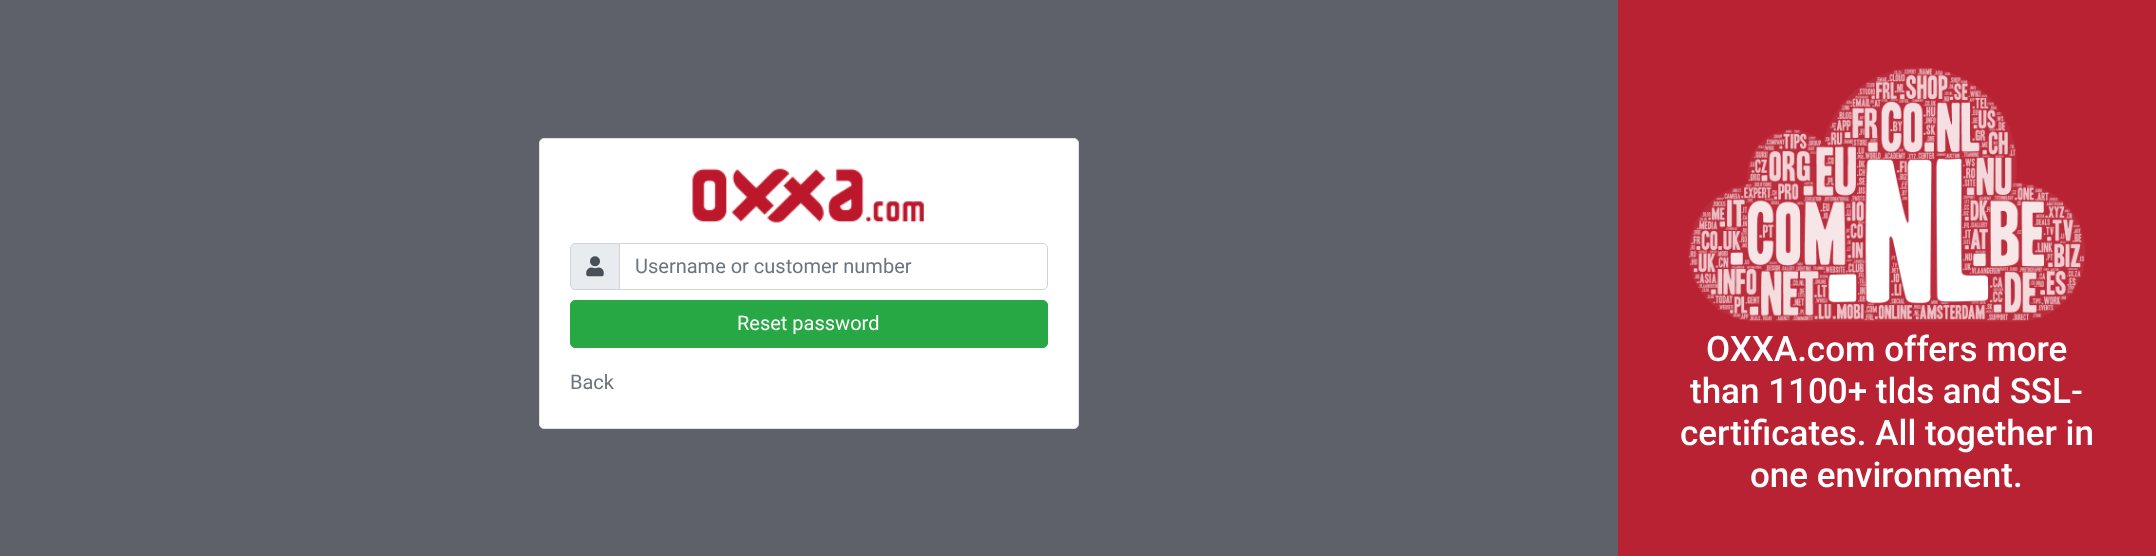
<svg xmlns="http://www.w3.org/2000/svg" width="2156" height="556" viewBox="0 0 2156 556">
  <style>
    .t1 { font: 20px Roboto; fill: #6c757d; }
    .t2 { font: 20px Roboto; fill: #fff; }
    .t3 { font: 500 35px Roboto; fill: #fff; }
  </style>
  <rect width="100%" height="100%" fill="#5e616a"/>
  <rect x="539.5" y="138.5" width="539" height="290" rx="4.5" fill="#fff" stroke="#dee2e6"/>
  <image x="692" y="168" width="232" height="55" href="images/1.png"/>
  <path d="M575 243.5H619.5V289.5H575C572.5 289.5 570.5 287.5 570.5 285V248C570.5 245.5 572.5 243.5 575 243.5Z" fill="#e9ecef" stroke="#ced4da"/>
  <image x="586" y="256" width="18" height="21" href="images/2.png"/>
  <path d="M619.5 243.5H1043C1045.5 243.5 1047.5 245.5 1047.5 248V285C1047.5 287.5 1045.5 289.5 1043 289.5H619.5Z" fill="none" stroke="#ced4da"/>
  <text x="635" y="273" class="t1">Username or customer number</text>
  <rect x="570.5" y="300.5" width="477" height="47" rx="4.5" fill="#28a745" stroke="#28a745"/>
  <text x="737" y="330" class="t2">Reset password</text>
  <text x="570" y="389" class="t1">Back</text>
  <rect x="1618" y="0" width="538" height="556" fill="#b82233"/>
  <image x="1688" y="67" width="398" height="255" href="images/3.png"/>
  <text x="1706" y="361" class="t3">OXXA.com offers more</text>
  <text x="1690" y="403" class="t3">than 1100+ tlds and SSL-</text>
  <text x="1680" y="445" class="t3">certificates. All together in</text>
  <text x="1750" y="487" class="t3">one environment.</text>
</svg>
